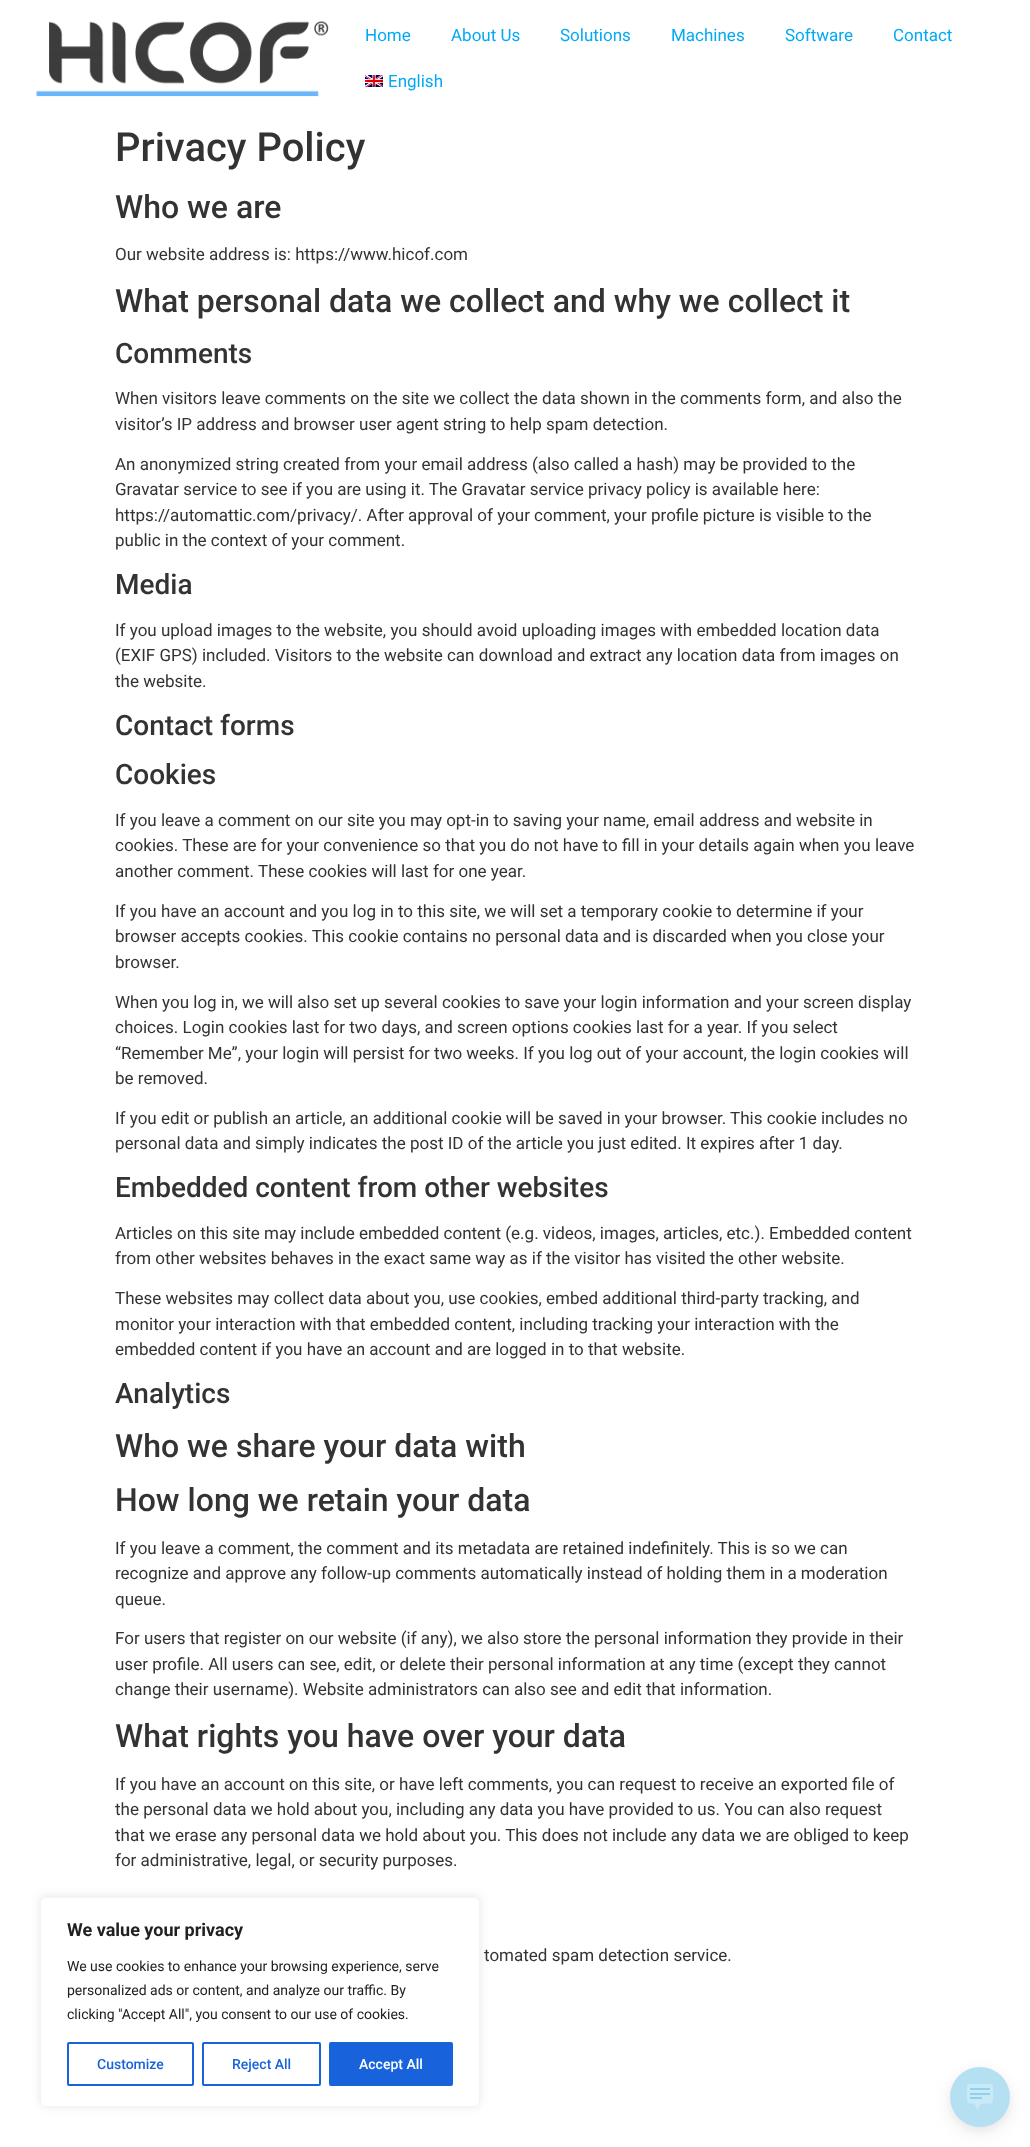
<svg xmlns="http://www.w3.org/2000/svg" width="1030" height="2147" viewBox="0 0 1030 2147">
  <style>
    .t1 { font: 17px Roboto; fill: #03a9f4; }
    .t2 { font: 500 40px Roboto; fill: #333; }
    .t3 { font: 500 32px Roboto; fill: #333; }
    .t4 { font: 17px Roboto; fill: #333; }
    .t5 { font: 500 28px Roboto; fill: #333; }
    .t6 { font: bold 18px Roboto; fill: #212121; }
    .t7 { font: 14px Roboto; fill: #212121; }
    .t8 { font: 500 14px Roboto; fill: #1863dc; }
    .t9 { font: 500 14px Roboto; fill: #fff; }
  </style>
  <rect width="100%" height="100%" fill="#fff"/>
  <image x="36" y="21" width="293" height="76" href="images/1.png"/>
  <text x="365" y="41" class="t1">Home</text>
  <text x="451" y="41" class="t1">About Us</text>
  <text x="560" y="41" class="t1">Solutions</text>
  <text x="671" y="41" class="t1">Machines</text>
  <text x="785" y="41" class="t1">Software</text>
  <text x="893" y="41" class="t1">Contact</text>
  <image x="365" y="75" width="18" height="12" href="images/2.png"/>
  <text x="388" y="87" class="t1">English</text>
  <text x="115" y="161" class="t2">Privacy Policy</text>
  <text x="115" y="218" class="t3">Who we are</text>
  <text x="115" y="260" class="t4">Our website address is: https://www.hicof.com</text>
  <text x="115" y="312" class="t3">What personal data we collect and why we collect it</text>
  <text x="115" y="363" class="t5">Comments</text>
  <text x="115" y="404" class="t4">When visitors leave comments on the site we collect the data shown in the comments form, and also the</text>
  <text x="115" y="430" class="t4">visitor’s IP address and browser user agent string to help spam detection.</text>
  <text x="115" y="470" class="t4">An anonymized string created from your email address (also called a hash) may be provided to the</text>
  <text x="115" y="495" class="t4">Gravatar service to see if you are using it. The Gravatar service privacy policy is available here:</text>
  <text x="115" y="521" class="t4">https://automattic.com/privacy/. After approval of your comment, your profile picture is visible to the</text>
  <text x="115" y="546" class="t4">public in the context of your comment.</text>
  <text x="115" y="594" class="t5">Media</text>
  <text x="115" y="636" class="t4">If you upload images to the website, you should avoid uploading images with embedded location data</text>
  <text x="115" y="661" class="t4">(EXIF GPS) included. Visitors to the website can download and extract any location data from images on</text>
  <text x="115" y="687" class="t4">the website.</text>
  <text x="115" y="735" class="t5">Contact forms</text>
  <text x="115" y="784" class="t5">Cookies</text>
  <text x="115" y="826" class="t4">If you leave a comment on our site you may opt-in to saving your name, email address and website in</text>
  <text x="115" y="851" class="t4">cookies. These are for your convenience so that you do not have to fill in your details again when you leave</text>
  <text x="115" y="877" class="t4">another comment. These cookies will last for one year.</text>
  <text x="115" y="917" class="t4">If you have an account and you log in to this site, we will set a temporary cookie to determine if your</text>
  <text x="115" y="942" class="t4">browser accepts cookies. This cookie contains no personal data and is discarded when you close your</text>
  <text x="115" y="968" class="t4">browser.</text>
  <text x="115" y="1008" class="t4">When you log in, we will also set up several cookies to save your login information and your screen display</text>
  <text x="115" y="1033" class="t4">choices. Login cookies last for two days, and screen options cookies last for a year. If you select</text>
  <text x="115" y="1059" class="t4">“Remember Me”, your login will persist for two weeks. If you log out of your account, the login cookies will</text>
  <text x="115" y="1084" class="t4">be removed.</text>
  <text x="115" y="1124" class="t4">If you edit or publish an article, an additional cookie will be saved in your browser. This cookie includes no</text>
  <text x="115" y="1149" class="t4">personal data and simply indicates the post ID of the article you just edited. It expires after 1 day.</text>
  <text x="115" y="1197" class="t5">Embedded content from other websites</text>
  <text x="115" y="1239" class="t4">Articles on this site may include embedded content (e.g. videos, images, articles, etc.). Embedded content</text>
  <text x="115" y="1264" class="t4">from other websites behaves in the exact same way as if the visitor has visited the other website.</text>
  <text x="115" y="1304" class="t4">These websites may collect data about you, use cookies, embed additional third-party tracking, and</text>
  <text x="115" y="1330" class="t4">monitor your interaction with that embedded content, including tracking your interaction with the</text>
  <text x="115" y="1355" class="t4">embedded content if you have an account and are logged in to that website.</text>
  <text x="115" y="1403" class="t5">Analytics</text>
  <text x="115" y="1457" class="t3">Who we share your data with</text>
  <text x="115" y="1511" class="t3">How long we retain your data</text>
  <text x="115" y="1554" class="t4">If you leave a comment, the comment and its metadata are retained indefinitely. This is so we can</text>
  <text x="115" y="1579" class="t4">recognize and approve any follow-up comments automatically instead of holding them in a moderation</text>
  <text x="115" y="1605" class="t4">queue.</text>
  <text x="115" y="1644" class="t4">For users that register on our website (if any), we also store the personal information they provide in their</text>
  <text x="115" y="1670" class="t4">user profile. All users can see, edit, or delete their personal information at any time (except they cannot</text>
  <text x="115" y="1695" class="t4">change their username). Website administrators can also see and edit that information.</text>
  <text x="115" y="1747" class="t3">What rights you have over your data</text>
  <text x="115" y="1790" class="t4">If you have an account on this site, or have left comments, you can request to receive an exported file of</text>
  <text x="115" y="1815" class="t4">the personal data we hold about you, including any data you have provided to us. You can also request</text>
  <text x="115" y="1841" class="t4">that we erase any personal data we hold about you. This does not include any data we are obliged to keep</text>
  <text x="115" y="1866" class="t4">for administrative, legal, or security purposes.</text>
  <text x="484" y="1961" class="t4">tomated spam detection service.</text>
  <rect x="40" y="1896" width="440" height="210" rx="6" fill="#acabab4d" filter="blur(5px)"/>
  <rect x="40.5" y="1897.5" width="439" height="209" rx="5.5" fill="#fff" stroke="#f4f4f4"/>
  <text x="67" y="1936" class="t6">We value your privacy</text>
  <text x="67" y="1971" class="t7">We use cookies to enhance your browsing experience, serve</text>
  <text x="67" y="1995" class="t7">personalized ads or content, and analyze our traffic. By</text>
  <text x="67" y="2019" class="t7">clicking "Accept All", you consent to our use of cookies.</text>
  <rect x="68" y="2043" width="125" height="42" rx="1" fill="none" stroke="#1863dc" stroke-width="2"/>
  <text x="97" y="2069" class="t8">Customize</text>
  <rect x="203" y="2043" width="117" height="42" rx="1" fill="none" stroke="#1863dc" stroke-width="2"/>
  <text x="232" y="2069" class="t8">Reject All</text>
  <rect x="330" y="2043" width="122" height="42" rx="1" fill="#1863dc" stroke="#1863dc" stroke-width="2"/>
  <text x="359" y="2069" class="t9">Accept All</text>
  <rect x="950" y="2073" width="60" height="60" rx="30" fill="#b3b3b330" filter="blur(10px)"/>
  <rect x="950" y="2071" width="60" height="60" rx="30" fill="#b3b3b333" filter="blur(4px)"/>
  <circle cx="980" cy="2097" r="30" fill="#b4e0f2"/>
  <image x="967" y="2084" width="26" height="26" href="images/3.png"/>
</svg>
